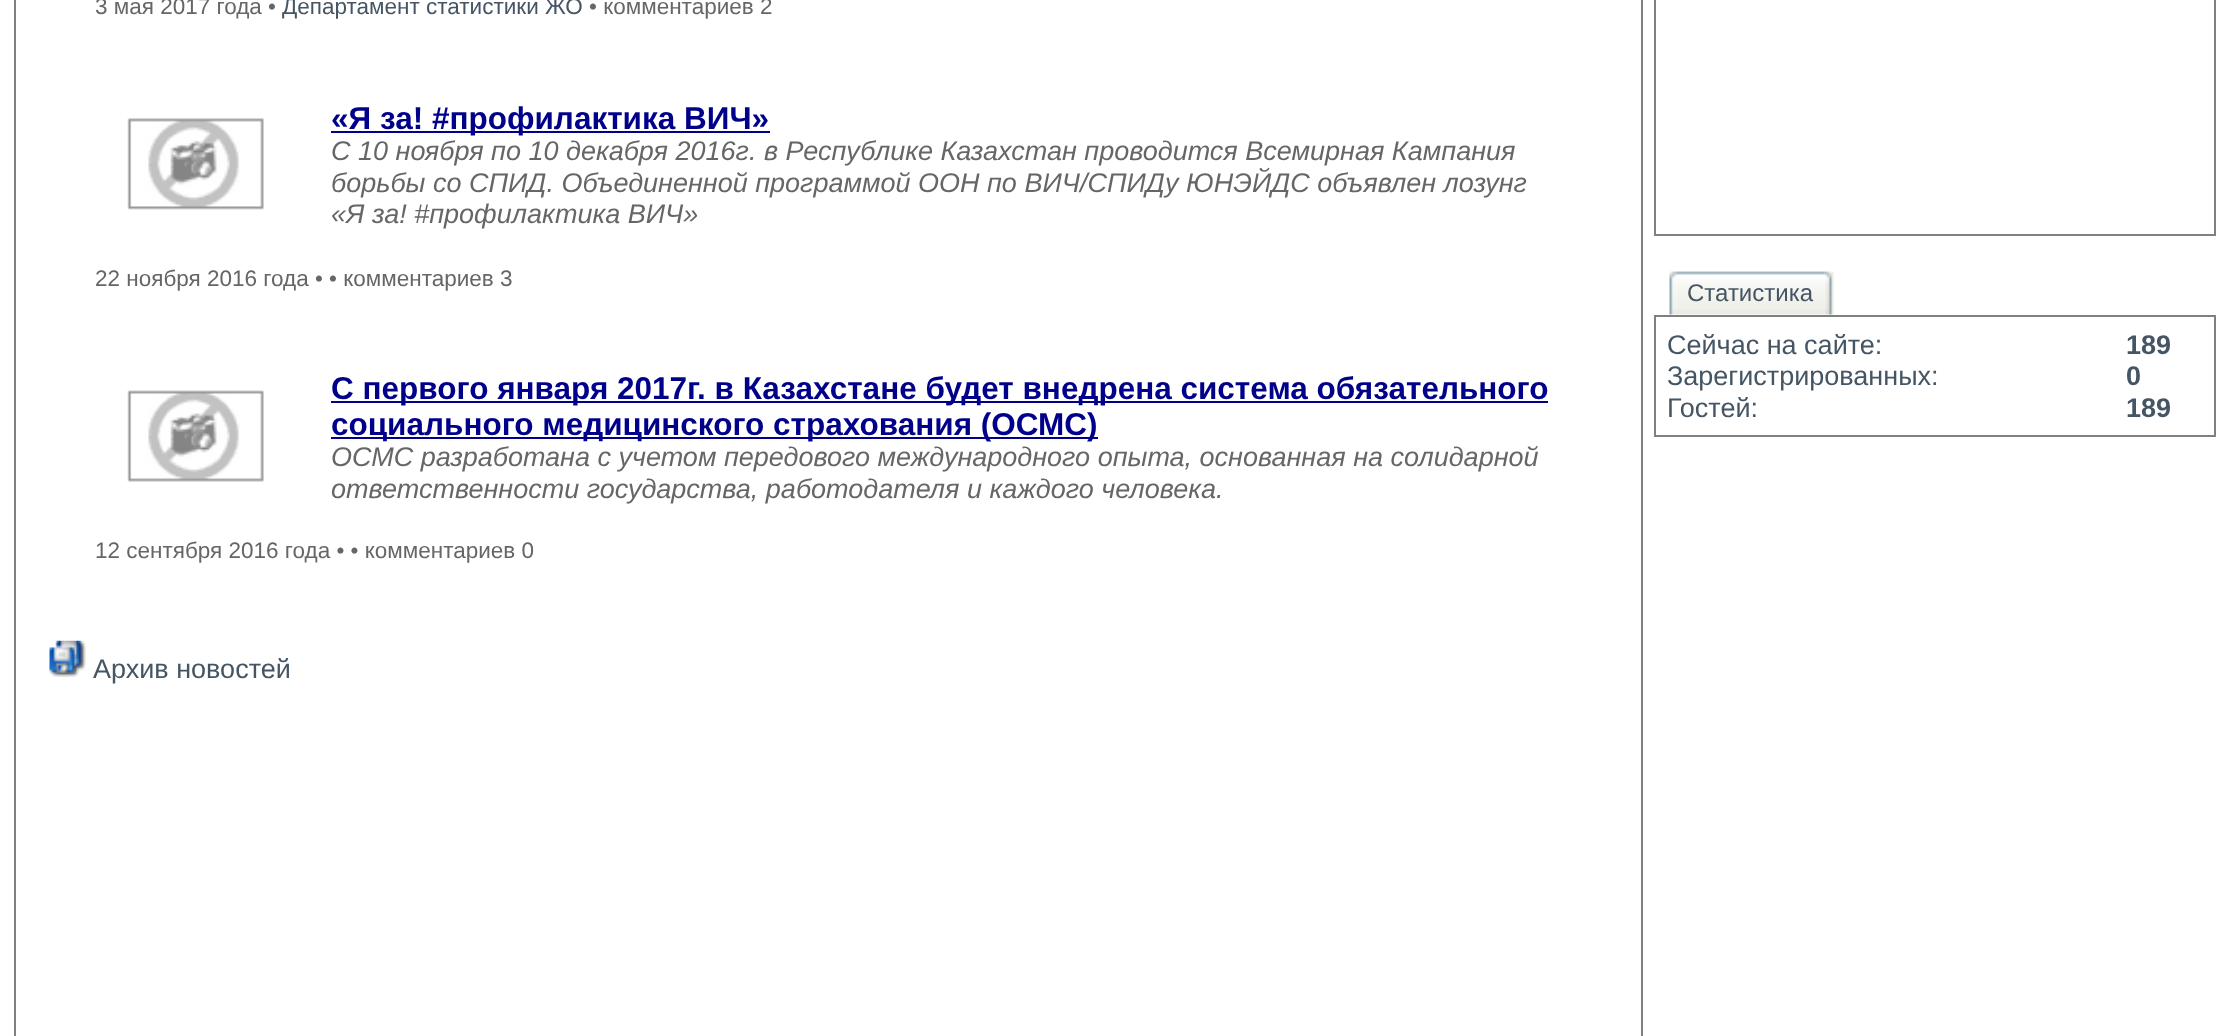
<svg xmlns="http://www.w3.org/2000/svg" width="2229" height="1036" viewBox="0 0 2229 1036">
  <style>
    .t1 { font: 22.5px Liberation Sans; fill: #666; }
    .t2 { font: 22.5px Liberation Sans; fill: #455564; }
    .t3 { font: bold 31.5px Liberation Sans; fill: #00008b; }
    .t4 { font: italic 27px Liberation Sans; fill: #666; }
    .t5 { font: 27px Liberation Sans; fill: #455564; }
    .t6 { font: 24px Liberation Sans; fill: #455564; }
    .t7 { font: bold 27px Liberation Sans; fill: #455564; }
  </style>
  <rect width="100%" height="100%" fill="#fff"/>
  <rect x="15" y="-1" width="1627" height="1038" fill="none" stroke="#808080" stroke-width="2"/>
  <text x="95" y="14" class="t1">3 мая 2017 года •</text>
  <text x="282" y="14" class="t2">Департамент статистики ЖО</text>
  <text x="589" y="14" class="t1">• комментариев 2</text>
  <image x="127" y="118" width="137" height="92" href="images/1.png"/>
  <rect x="331" y="131" width="439" height="2" fill="#00008b"/>
  <text x="331" y="129" class="t3">«Я за! #профилактика ВИЧ»</text>
  <text x="331" y="160" class="t4">С 10 ноября по 10 декабря 2016г. в Республике Казахстан проводится Всемирная Кампания</text>
  <text x="331" y="192" class="t4">борьбы со СПИД. Объединенной программой ООН по ВИЧ/СПИДу ЮНЭЙДС объявлен лозунг</text>
  <text x="331" y="223" class="t4">«Я за! #профилактика ВИЧ»</text>
  <text x="95" y="286" class="t1">22 ноября 2016 года • • комментариев 3</text>
  <image x="127" y="390" width="137" height="92" href="images/2.png"/>
  <rect x="331" y="401" width="1217" height="2" fill="#00008b"/>
  <text x="331" y="399" class="t3">С первого января 2017г. в Казахстане будет внедрена система обязательного</text>
  <rect x="331" y="437" width="767" height="2" fill="#00008b"/>
  <text x="331" y="435" class="t3">социального медицинского страхования (ОСМС)</text>
  <text x="331" y="466" class="t4">ОСМС разработана с учетом передового международного опыта, основанная на солидарной</text>
  <text x="331" y="498" class="t4">ответственности государства, работодателя и каждого человека.</text>
  <text x="95" y="558" class="t1">12 сентября 2016 года • • комментариев 0</text>
  <image x="49" y="640" width="37" height="37" href="images/3.png"/>
  <text x="93" y="678" class="t5">Архив новостей</text>
  <rect x="1655" y="-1" width="560" height="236" fill="none" stroke="#808080" stroke-width="2"/>
  <image x="1676" y="271" width="149" height="44" href="images/5.png"/>
  <image x="1669" y="271" width="8" height="44" href="images/4.png"/>
  <text x="1687" y="301" class="t6">Статистика</text>
  <image x="1824" y="271" width="10" height="44" href="images/6.png"/>
  <rect x="1655" y="316" width="560" height="120" fill="none" stroke="#808080" stroke-width="2"/>
  <text x="1667" y="354" class="t5">Сейчас на сайте:</text>
  <text x="2126" y="354" class="t7">189</text>
  <text x="1667" y="385" class="t5">Зарегистрированных:</text>
  <text x="2126" y="385" class="t7">0</text>
  <text x="1667" y="417" class="t5">Гостей:</text>
  <text x="2126" y="417" class="t7">189</text>
</svg>
